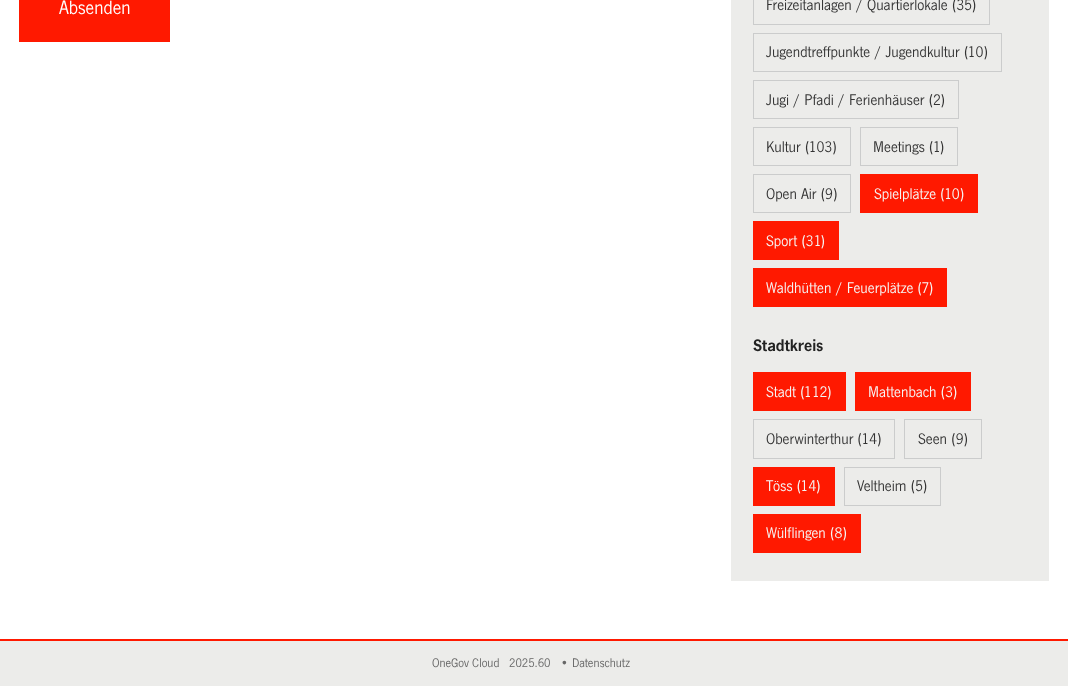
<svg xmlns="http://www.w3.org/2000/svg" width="1068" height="686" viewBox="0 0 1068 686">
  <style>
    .t1 { font: 20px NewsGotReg; fill: #fff; }
    .t2 { font: 16px NewsGotReg; fill: #333; }
    .t3 { font: 16px NewsGotReg; fill: #f6f6f5; }
    .t4 { font: 17.5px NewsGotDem; fill: #222; }
    .t5 { font: 13px NewsGotReg; fill: #666; }
  </style>
  <rect width="100%" height="100%" fill="#fff"/>
  <rect x="19" y="0" width="151" height="42" fill="#ff1900"/>
  <text x="59" y="14" class="t1">Absenden</text>
  <rect x="731" y="0" width="318" height="581" fill="#ececea"/>
  <rect x="753.5" y="-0.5" width="236" height="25" fill="none" stroke="#cbcccc"/>
  <text x="766" y="10" class="t2">Freizeitanlagen / Quartierlokale (35)</text>
  <rect x="753.5" y="33.5" width="248" height="38" fill="none" stroke="#cbcccc"/>
  <text x="766" y="57" class="t2">Jugendtreffpunkte / Jugendkultur (10)</text>
  <rect x="753.5" y="80.5" width="205" height="38" fill="none" stroke="#cbcccc"/>
  <text x="766" y="105" class="t2">Jugi / Pfadi / Ferienhäuser (2)</text>
  <rect x="753.5" y="127.5" width="97" height="38" fill="none" stroke="#cbcccc"/>
  <text x="766" y="152" class="t2">Kultur (103)</text>
  <rect x="860.5" y="127.5" width="97" height="38" fill="none" stroke="#cbcccc"/>
  <text x="873" y="152" class="t2">Meetings (1)</text>
  <rect x="753.5" y="174.5" width="97" height="38" fill="none" stroke="#cbcccc"/>
  <text x="766" y="199" class="t2">Open Air (9)</text>
  <rect x="860" y="174" width="118" height="39" fill="#ff1900"/>
  <text x="874" y="199" class="t3">Spielplätze (10)</text>
  <rect x="753" y="221" width="86" height="39" fill="#ff1900"/>
  <text x="766" y="246" class="t3">Sport (31)</text>
  <rect x="753" y="268" width="194" height="39" fill="#ff1900"/>
  <text x="766" y="293" class="t3">Waldhütten / Feuerplätze (7)</text>
  <text x="753" y="351" class="t4">Stadtkreis</text>
  <rect x="753" y="372" width="93" height="39" fill="#ff1900"/>
  <text x="766" y="397" class="t3">Stadt (112)</text>
  <rect x="855" y="372" width="116" height="39" fill="#ff1900"/>
  <text x="868" y="397" class="t3">Mattenbach (3)</text>
  <rect x="753.5" y="419.5" width="141" height="39" fill="none" stroke="#cbcccc"/>
  <text x="766" y="444" class="t2">Oberwinterthur (14)</text>
  <rect x="904.5" y="419.5" width="77" height="39" fill="none" stroke="#cbcccc"/>
  <text x="918" y="444" class="t2">Seen (9)</text>
  <rect x="753" y="467" width="82" height="39" fill="#ff1900"/>
  <text x="766" y="491" class="t3">Töss (14)</text>
  <rect x="844.5" y="467.5" width="96" height="38" fill="none" stroke="#cbcccc"/>
  <text x="857" y="491" class="t2">Veltheim (5)</text>
  <rect x="753" y="514" width="108" height="39" fill="#ff1900"/>
  <text x="766" y="538" class="t3">Wülflingen (8)</text>
  <rect x="0" y="639" width="1068" height="2" fill="#ff1900"/>
  <rect x="0" y="641" width="1068" height="45" fill="#ececea"/>
  <text x="432" y="667" class="t5">OneGov Cloud</text>
  <text x="509" y="667" class="t5">2025.60</text>
  <text x="560" y="667" class="t5">• Datenschutz</text>
</svg>
